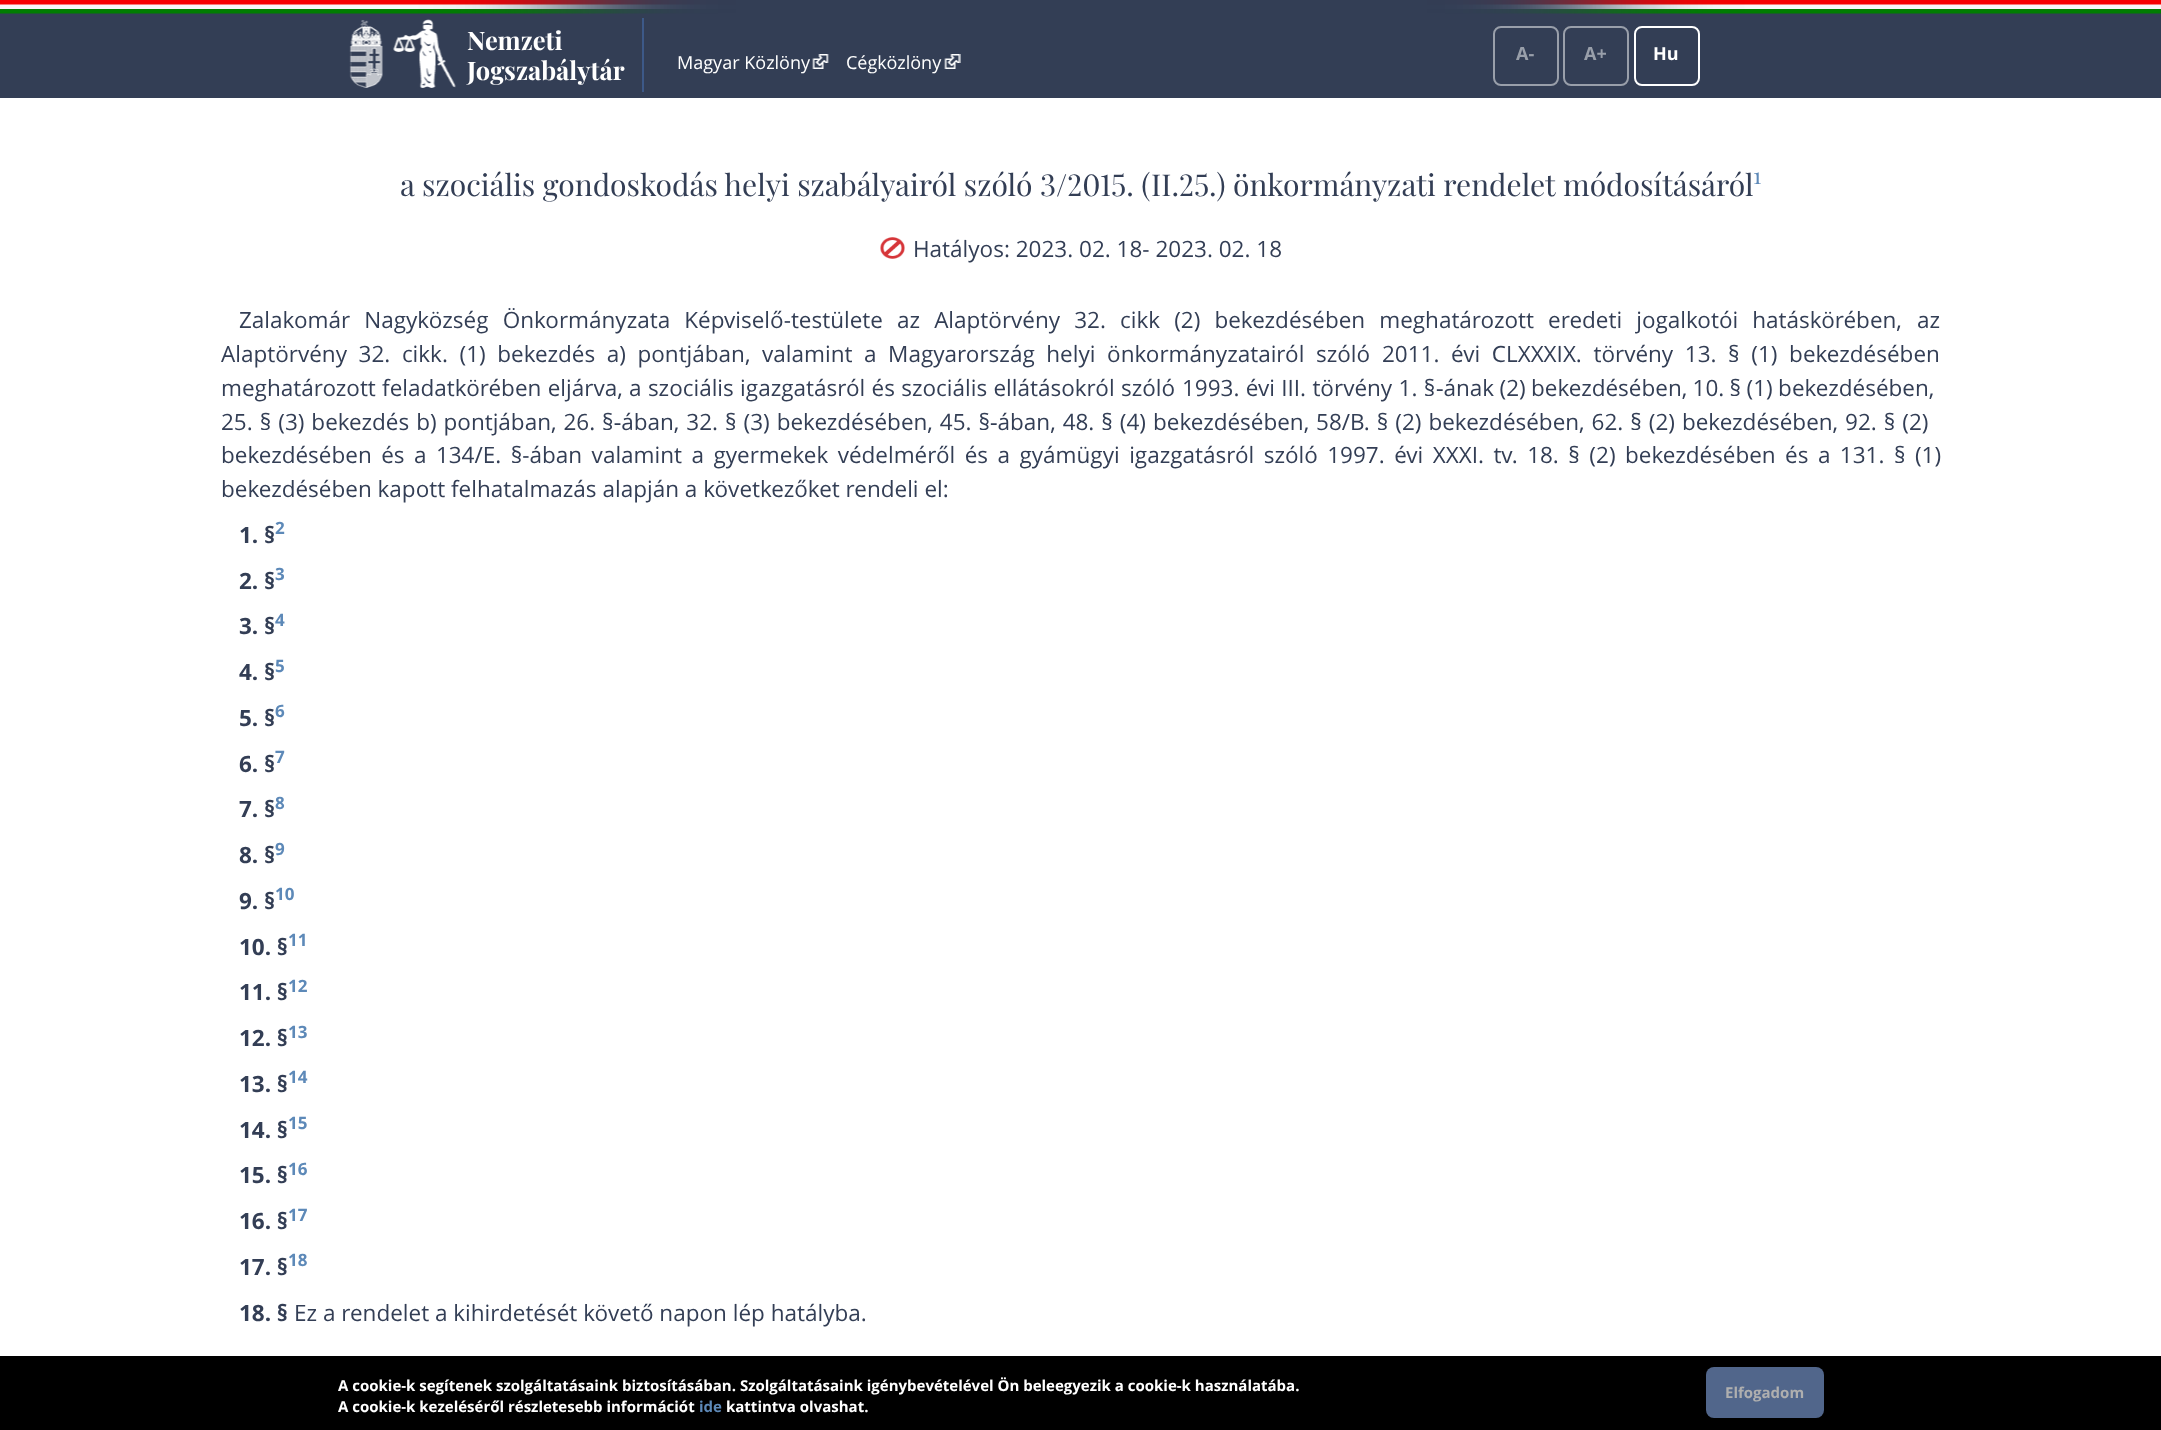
<svg xmlns="http://www.w3.org/2000/svg" width="2161" height="1430" viewBox="0 0 2161 1430">
  <style>
    .t1 { font: bold 25.5px Playfair Display; fill: #fff; }
    .t2 { font: 18px Open Sans; fill: #fff; }
    .t3 { font: bold 18px Open Sans; fill: #999faa; }
    .t4 { font: bold 18px Open Sans; fill: #fff; }
    .t5 { font: 30px Playfair Display; fill: #333e55; }
    .t6 { font: 30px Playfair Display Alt; fill: #333e55; }
    .t7 { font: 22.5px Playfair Display; fill: #5d89b8; }
    .t8 { font: 22.5px Open Sans; fill: #333e55; }
    .t9 { font: bold 22.5px Open Sans; fill: #333e55; }
    .t10 { font: bold 17px Open Sans; fill: #5d89b8; }
    .t11 { font: bold 15px Open Sans; fill: #fff; }
    .t12 { font: bold 15px Open Sans; fill: #5d89b8; }
    .t13 { font: bold 15px Open Sans; fill: #afafaf; }
  </style>
  <rect width="100%" height="100%" fill="#fff"/>
  <rect x="0" y="13" width="2161" height="85" fill="#333e55"/>
  <image x="0" y="0" width="2161" height="14" href="images/1.png"/>
  <rect x="339" y="0" width="1485" height="14" fill="#333e55"/>
  <image x="339" y="0" width="1485" height="14" href="images/2.png"/>
  <image x="349" y="19" width="107" height="69" href="images/3.png"/>
  <rect x="642" y="18" width="2" height="74" fill="#3d5988"/>
  <text x="467" y="50" class="t1">Nemzeti</text>
  <text x="467" y="80" class="t1">Jogszabálytár</text>
  <text x="677" y="69" class="t2">Magyar Közlöny</text>
  <image x="812" y="54" width="17" height="15" href="images/4.png"/>
  <text x="846" y="69" class="t2">Cégközlöny</text>
  <image x="944" y="54" width="17" height="15" href="images/5.png"/>
  <rect x="1494" y="27" width="64" height="58" rx="7" fill="none" stroke="#999faa" stroke-width="2"/>
  <text x="1516" y="60" class="t3">A-</text>
  <rect x="1564" y="27" width="64" height="58" rx="7" fill="none" stroke="#999faa" stroke-width="2"/>
  <text x="1584" y="60" class="t3">A+</text>
  <rect x="1635" y="27" width="64" height="58" rx="7" fill="none" stroke="#fff" stroke-width="2"/>
  <text x="1653" y="60" class="t4">Hu</text>
  <text x="400" y="196" class="t5">a szociális gondoskodás helyi szabályairól szóló</text>
  <text x="1040" y="196" class="t6">3/2015. (II.25.) önkormányzati rendelet</text>
  <text x="1563" y="196" class="t5">módosításáról</text>
  <text x="1753" y="184" class="t7">1</text>
  <image x="880" y="237" width="25" height="22" href="images/6.png"/>
  <text x="913" y="257" class="t8">Hatályos: 2023. 02. 18- 2023. 02. 18</text>
  <text x="239" y="328" word-spacing="8.25" class="t8">Zalakomár Nagyközség Önkormányzata Képviselő-testülete</text>
  <text x="897" y="328" word-spacing="8.25" class="t8">az Alaptörvény 32. cikk (2) bekezdésében meghatározott eredeti jogalkotói hatáskörében,</text>
  <text x="1917" y="328" class="t8">az</text>
  <text x="221" y="362" word-spacing="5.75" class="t8">Alaptörvény 32. cikk. (1) bekezdés a) pontjában, valamint a Magyarország helyi önkormányzatairól szóló</text>
  <text x="1382" y="362" word-spacing="5.75" class="t8">2011. évi CLXXXIX. törvény 13. § (1) bekezdés</text>
  <text x="1887" y="362" class="t8">ében</text>
  <text x="221" y="396" word-spacing="0.5" class="t8">meghatározott feladatkörében eljárva, a szociális igazgatásról és szociális ellátásokról szóló</text>
  <text x="1182" y="396" word-spacing="0.5" class="t8">1993. évi III. törvény 1. §</text>
  <text x="1436" y="396" word-spacing="-0.5" class="t8">‑ának (2) bekezdésében, 10. § (1) bekezdésében,</text>
  <text x="221" y="430" word-spacing="1.1" class="t8">25. § (3) bekezdés b) pontjában, 26. §‑ában, 32. § (3) bekezdésében, 45. §‑ában, 48. § (4) bekezdésében, 58/B. § (2) bekezdésében, 62. § (2) bekezdésében, 92. § (2)</text>
  <text x="221" y="463" word-spacing="3.6" class="t8">bekezdésében és a 134/E. §-ában valamint a gyermekek védelméről és a gyámügyi igazgatásról szóló 1997. évi XXXI. tv. 18. § (2) bekezdésében és a 131. § (1)</text>
  <text x="221" y="497" class="t8">bekezdésében kapott felhatalmazás alapján a következőket rendeli el:</text>
  <text x="239" y="543" class="t9">1. §</text>
  <text x="275" y="534" class="t10">2</text>
  <text x="239" y="589" class="t9">2. §</text>
  <text x="275" y="580" class="t10">3</text>
  <text x="239" y="634" class="t9">3. §</text>
  <text x="275" y="626" class="t10">4</text>
  <text x="239" y="680" class="t9">4. §</text>
  <text x="275" y="672" class="t10">5</text>
  <text x="239" y="726" class="t9">5. §</text>
  <text x="275" y="717" class="t10">6</text>
  <text x="239" y="772" class="t9">6. §</text>
  <text x="275" y="763" class="t10">7</text>
  <text x="239" y="817" class="t9">7. §</text>
  <text x="275" y="809" class="t10">8</text>
  <text x="239" y="863" class="t9">8. §</text>
  <text x="275" y="855" class="t10">9</text>
  <text x="239" y="909" class="t9">9. §</text>
  <text x="275" y="900" class="t10">10</text>
  <text x="239" y="955" class="t9">10. §</text>
  <text x="288" y="946" class="t10">11</text>
  <text x="239" y="1000" class="t9">11. §</text>
  <text x="288" y="992" class="t10">12</text>
  <text x="239" y="1046" class="t9">12. §</text>
  <text x="288" y="1038" class="t10">13</text>
  <text x="239" y="1092" class="t9">13. §</text>
  <text x="288" y="1083" class="t10">14</text>
  <text x="239" y="1138" class="t9">14. §</text>
  <text x="288" y="1129" class="t10">15</text>
  <text x="239" y="1183" class="t9">15. §</text>
  <text x="288" y="1175" class="t10">16</text>
  <text x="239" y="1229" class="t9">16. §</text>
  <text x="288" y="1221" class="t10">17</text>
  <text x="239" y="1275" class="t9">17. §</text>
  <text x="288" y="1266" class="t10">18</text>
  <text x="239" y="1321" class="t9">18. §</text>
  <text x="294" y="1321" class="t8">Ez a rendelet a kihirdetését követő napon lép hatályba.</text>
  <rect x="0" y="1356" width="2161" height="74" fill="#000"/>
  <text x="338" y="1391" class="t11">A cookie-k segítenek szolgáltatásaink biztosításában. Szolgáltatásaink igénybevételével Ön beleegyezik a cookie-k használatába.</text>
  <text x="338" y="1412" class="t11">A cookie-k kezeléséről részletesebb információt</text>
  <text x="699" y="1412" class="t12">ide</text>
  <text x="726" y="1412" class="t11">kattintva olvashat.</text>
  <rect x="1706" y="1367" width="118" height="51" rx="8" fill="#51668b"/>
  <text x="1725" y="1398" class="t13">Elfogadom</text>
</svg>
